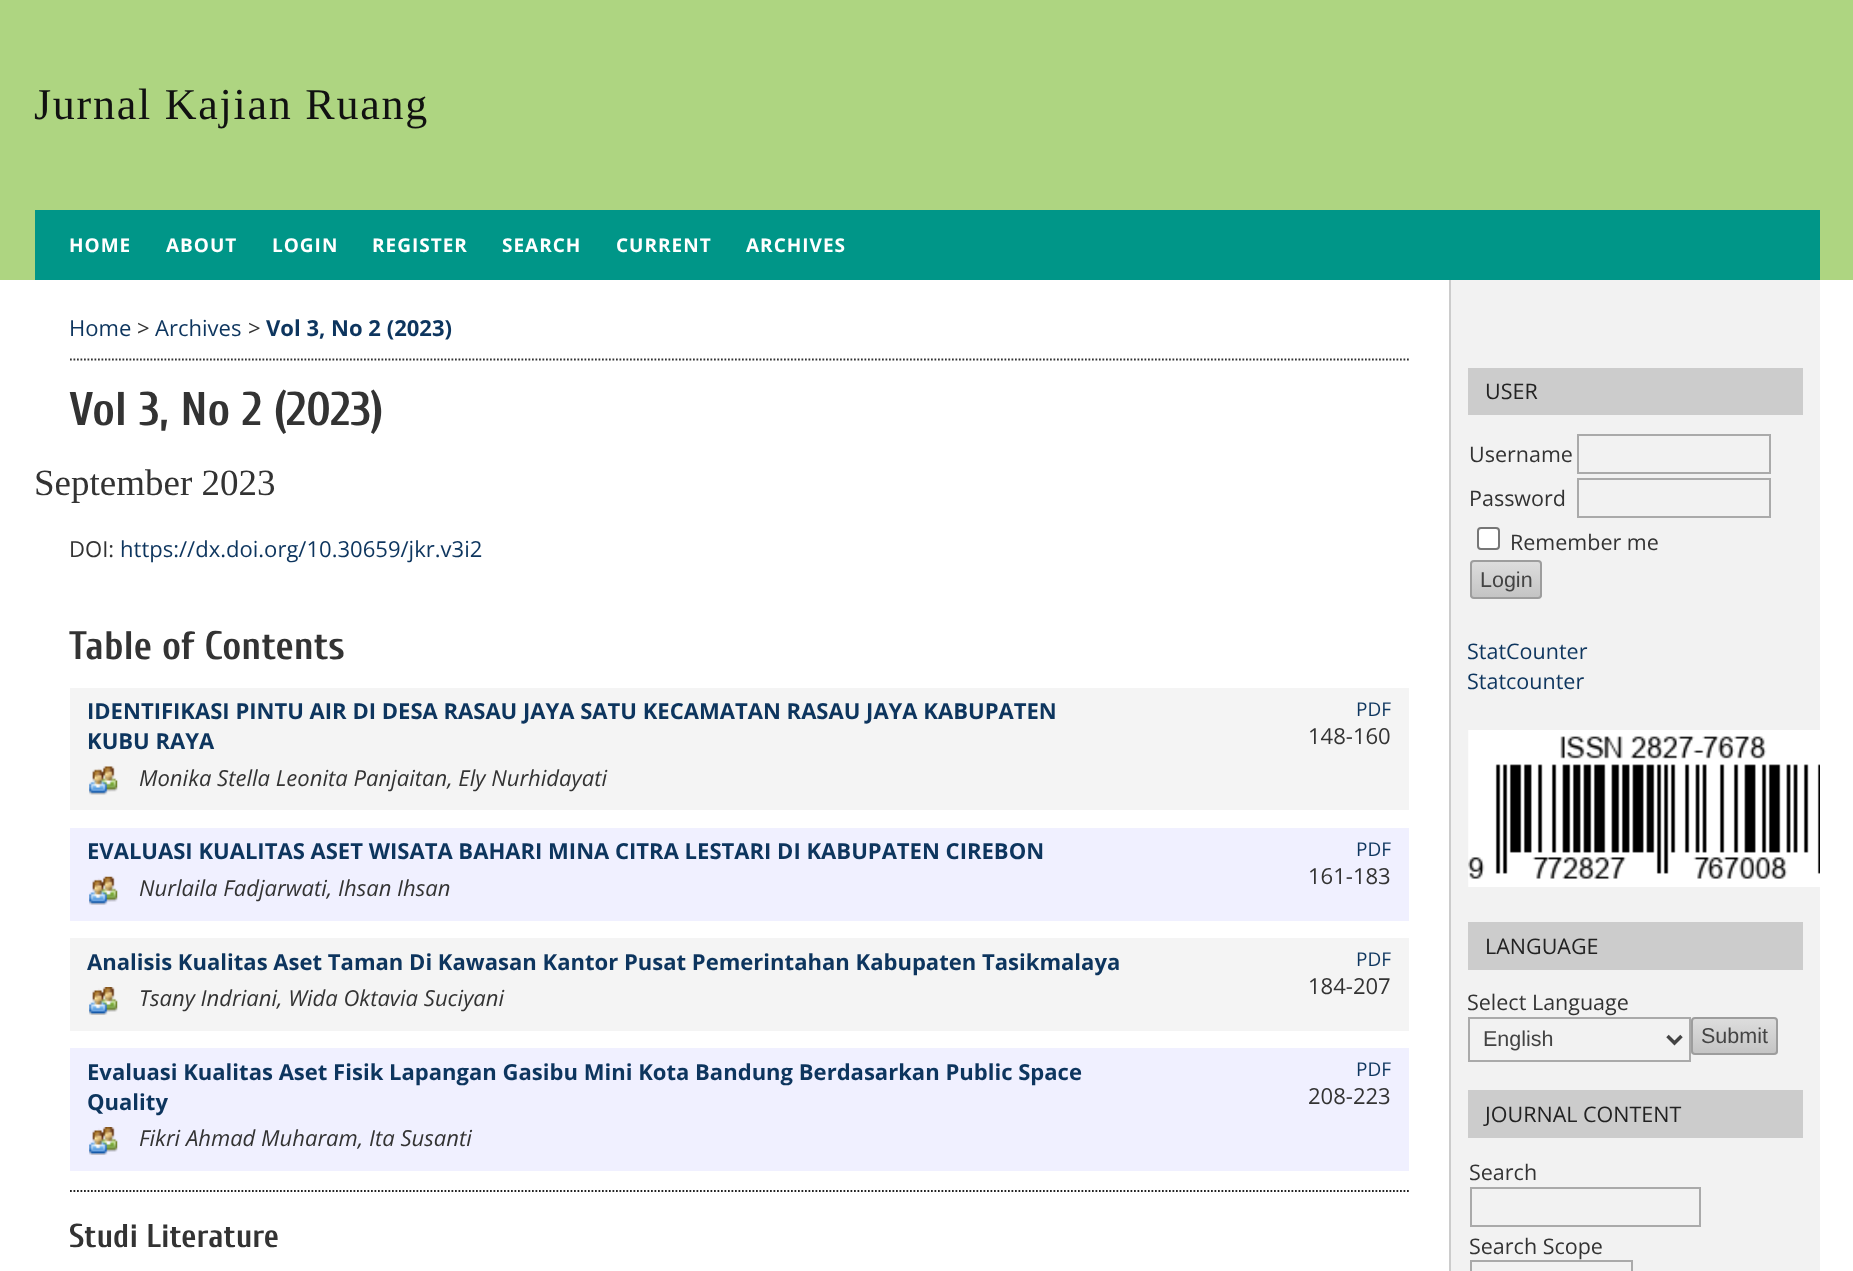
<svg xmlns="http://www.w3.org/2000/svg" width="1853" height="1271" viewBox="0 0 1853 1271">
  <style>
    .t1 { font: 44px Liberation Serif; letter-spacing: 1.75px; fill: #111; }
    .t2 { font: bold 19px Open Sans; letter-spacing: 1px; fill: #fff; }
    .t3 { font: 22.05px Open Sans; fill: #0d355e; }
    .t4 { font: 22.05px Open Sans; fill: #333; }
    .t5 { font: bold 22.05px Open Sans; fill: #0d355e; }
    .t6 { font: bold 47.25px Cuprum; fill: #333; }
    .t7 { font: 37px Liberation Serif; fill: #333; }
    .t8 { font: bold 39.75px Cuprum; fill: #333; }
    .t9 { font: italic 22.05px Open Sans; fill: #333; }
    .t10 { font: 19px Open Sans; fill: #0d355e; }
    .t11 { font: bold 33px Cuprum; fill: #333; }
    .t12 { font: 21.5px Open Sans; fill: #222; }
    .t13 { font: 21.5px Open Sans; fill: #333; }
    .t14 { font: 21.5px Liberation Sans; fill: #444; }
    .t15 { font: 21.5px Open Sans; fill: #0d355e; }
  </style>
  <defs>
    <clipPath id="clip1"><rect x="1470" y="560" width="72" height="39" rx="4"/></clipPath>
    <linearGradient id="g1" gradientUnits="userSpaceOnUse" x1="1506" y1="562" x2="1506" y2="597"><stop offset="0" stop-color="#ddd"/><stop offset="1" stop-color="#c4c4c4"/></linearGradient>
    <clipPath id="clip2"><rect x="1691" y="1017" width="87" height="38" rx="4"/></clipPath>
    <linearGradient id="g2" gradientUnits="userSpaceOnUse" x1="1734" y1="1019" x2="1734" y2="1054"><stop offset="0" stop-color="#ddd"/><stop offset="1" stop-color="#c4c4c4"/></linearGradient>
  </defs>
  <rect width="100%" height="100%" fill="#fff"/>
  <rect x="0" y="0" width="1853" height="280" fill="#aed581"/>
  <text x="34" y="119" class="t1">Jurnal Kajian Ruang</text>
  <rect x="35" y="210" width="1785" height="70" fill="#009688"/>
  <text x="69" y="252" class="t2">HOME</text>
  <text x="166" y="252" class="t2">ABOUT</text>
  <text x="272" y="252" class="t2">LOGIN</text>
  <text x="372" y="252" class="t2">REGISTER</text>
  <text x="502" y="252" class="t2">SEARCH</text>
  <text x="616" y="252" class="t2">CURRENT</text>
  <text x="746" y="252" class="t2">ARCHIVES</text>
  <path d="M70 359.5H1409" fill="none" stroke="#333" stroke-width="1.8" stroke-dasharray="1.75 1.75"/>
  <text x="69" y="336" class="t3">Home</text>
  <text x="137" y="336" class="t4">&gt;</text>
  <text x="155" y="336" class="t3">Archives</text>
  <text x="248" y="336" class="t4">&gt;</text>
  <text x="266" y="336" class="t5">Vol 3, No 2 (2023)</text>
  <text x="69" y="425" class="t6">Vol 3, No 2 (2023)</text>
  <text x="34" y="495" class="t7">September 2023</text>
  <text x="69" y="557" class="t4">DOI:</text>
  <text x="120" y="557" class="t3">https://dx.doi.org/10.30659/jkr.v3i2</text>
  <text x="69" y="659" class="t8">Table of Contents</text>
  <rect x="70" y="688" width="1339" height="122" fill="#f4f4f4"/>
  <text x="87" y="719" class="t5">IDENTIFIKASI PINTU AIR DI DESA RASAU JAYA SATU KECAMATAN RASAU JAYA KABUPATEN</text>
  <text x="87" y="749" class="t5">KUBU RAYA</text>
  <image x="89" y="766" width="29" height="29" href="images/1.png"/>
  <text x="139" y="786" class="t9">Monika Stella Leonita Panjaitan, Ely Nurhidayati</text>
  <text x="1356" y="716" class="t10">PDF</text>
  <text x="1308" y="744" class="t4">148-160</text>
  <rect x="70" y="828" width="1339" height="93" fill="#f0f0ff"/>
  <text x="87" y="859" class="t5">EVALUASI KUALITAS ASET WISATA BAHARI MINA CITRA LESTARI DI KABUPATEN CIREBON</text>
  <image x="89" y="876" width="29" height="29" href="images/2.png"/>
  <text x="139" y="896" class="t9">Nurlaila Fadjarwati, Ihsan Ihsan</text>
  <text x="1356" y="856" class="t10">PDF</text>
  <text x="1308" y="884" class="t4">161-183</text>
  <rect x="70" y="938" width="1339" height="93" fill="#f4f4f4"/>
  <text x="87" y="970" class="t5">Analisis Kualitas Aset Taman Di Kawasan Kantor Pusat Pemerintahan Kabupaten Tasikmalaya</text>
  <image x="89" y="987" width="29" height="28" href="images/3.png"/>
  <text x="139" y="1006" class="t9">Tsany Indriani, Wida Oktavia Suciyani</text>
  <text x="1356" y="966" class="t10">PDF</text>
  <text x="1308" y="994" class="t4">184-207</text>
  <rect x="70" y="1048" width="1339" height="123" fill="#f0f0ff"/>
  <text x="87" y="1080" class="t5">Evaluasi Kualitas Aset Fisik Lapangan Gasibu Mini Kota Bandung Berdasarkan Public Space</text>
  <text x="87" y="1110" class="t5">Quality</text>
  <image x="89" y="1127" width="29" height="28" href="images/4.png"/>
  <text x="139" y="1146" class="t9">Fikri Ahmad Muharam, Ita Susanti</text>
  <text x="1356" y="1076" class="t10">PDF</text>
  <text x="1308" y="1104" class="t4">208-223</text>
  <path d="M70 1191H1409" fill="none" stroke="#222" stroke-width="1.8" stroke-dasharray="1.75 1.75"/>
  <text x="69" y="1247" class="t11">Studi Literature</text>
  <rect x="1451" y="280" width="369" height="991" fill="#f2f2f2"/>
  <rect x="1449" y="280" width="2" height="991" fill="#ccc"/>
  <rect x="1468" y="368" width="335" height="47" fill="#ccc"/>
  <text x="1485" y="399" class="t12">USER</text>
  <text x="1469" y="462" class="t13">Username</text>
  <rect x="1578" y="435" width="192" height="38" fill="none" stroke="#aaa" stroke-width="2"/>
  <text x="1469" y="506" class="t13">Password</text>
  <rect x="1578" y="479" width="192" height="38" fill="none" stroke="#aaa" stroke-width="2"/>
  <rect x="1478" y="528" width="21" height="21" rx="3" fill="#fff" stroke="#767676" stroke-width="2"/>
  <text x="1510" y="550" class="t13">Remember me</text>
  <g clip-path="url(#clip1)">
    <rect x="1470" y="562" width="72" height="35" fill="url(#g1)"/>
  </g>
  <rect x="1471" y="561" width="70" height="37" rx="3" fill="none" stroke="#9d9d9d" stroke-width="2"/>
  <text x="1480" y="587" class="t14">Login</text>
  <text x="1467" y="659" class="t15">StatCounter</text>
  <text x="1467" y="689" class="t15">Statcounter</text>
  <image x="1468" y="730" width="352" height="157" href="images/5.png"/>
  <rect x="1468" y="922" width="335" height="48" fill="#ccc"/>
  <text x="1485" y="954" class="t12">LANGUAGE</text>
  <text x="1467" y="1010" class="t13">Select Language</text>
  <rect x="1469" y="1018" width="221" height="43" fill="none" stroke="#aaa" stroke-width="2"/>
  <path d="M1667.5 1036L1674.5 1043L1681.5 1036" fill="none" stroke="#444" stroke-width="3.5"/>
  <text x="1483" y="1046" class="t14">English</text>
  <g clip-path="url(#clip2)">
    <rect x="1691" y="1019" width="87" height="35" fill="url(#g2)"/>
  </g>
  <rect x="1692" y="1018" width="85" height="36" rx="3" fill="none" stroke="#9d9d9d" stroke-width="2"/>
  <text x="1701" y="1043" class="t14">Submit</text>
  <rect x="1468" y="1090" width="335" height="48" fill="#ccc"/>
  <text x="1485" y="1122" class="t12">JOURNAL CONTENT</text>
  <text x="1469" y="1180" class="t13">Search</text>
  <rect x="1471" y="1188" width="229" height="38" fill="none" stroke="#aaa" stroke-width="2"/>
  <text x="1469" y="1254" class="t13">Search Scope</text>
  <rect x="1471" y="1261" width="161" height="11" fill="none" stroke="#aaa" stroke-width="2"/>
</svg>
